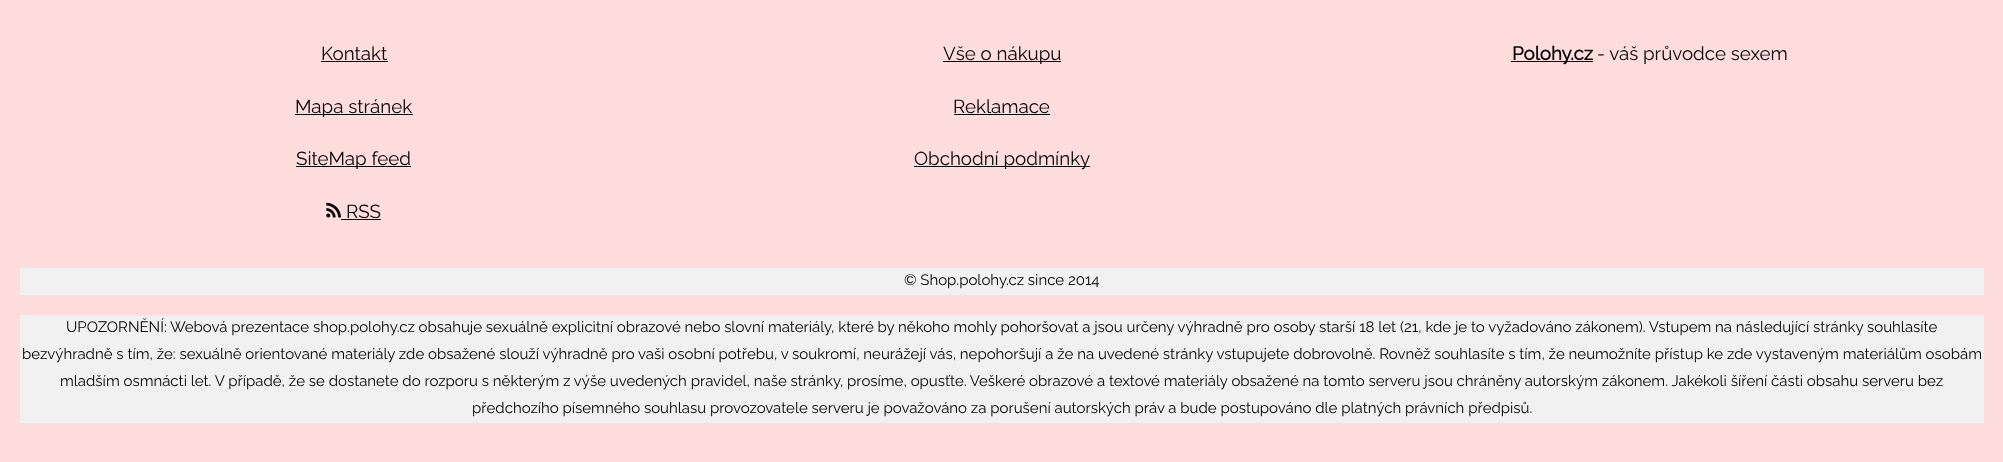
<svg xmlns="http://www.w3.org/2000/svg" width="2003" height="462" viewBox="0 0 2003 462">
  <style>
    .t1 { font: 100 18.75px Raleway; fill: #000; }
    .t2 { font: bold 18.75px Raleway; fill: #000; }
    .t3 { font: 100 15px Raleway; fill: #000; }
  </style>
  <rect width="100%" height="100%" fill="#fdd"/>
  <text x="321" y="60" class="t1">Kontakt</text>
  <rect x="321" y="61" width="67" height="1" fill="#000"/>
  <rect x="295" y="114" width="118" height="1" fill="#000"/>
  <text x="295" y="113" class="t1">Mapa stránek</text>
  <rect x="296" y="166" width="115" height="1" fill="#000"/>
  <text x="296" y="165" class="t1">SiteMap feed</text>
  <image x="326" y="202" width="15" height="16" href="images/1.png"/>
  <text x="346" y="218" class="t1">RSS</text>
  <rect x="341" y="219" width="40" height="1" fill="#000"/>
  <rect x="943" y="61" width="118" height="1" fill="#000"/>
  <text x="943" y="60" class="t1">Vše o nákupu</text>
  <text x="953" y="113" class="t1">Reklamace</text>
  <rect x="954" y="114" width="96" height="1" fill="#000"/>
  <rect x="914" y="166" width="176" height="1" fill="#000"/>
  <text x="914" y="165" class="t1">Obchodní podmínky</text>
  <rect x="1511" y="61" width="82" height="1" fill="#000"/>
  <text x="1512" y="60" class="t2">Polohy.cz</text>
  <text x="1597" y="60" class="t1">- váš průvodce sexem</text>
  <rect x="20" y="268" width="1964" height="27" fill="#f1f1f1"/>
  <text x="904" y="285" class="t3">© Shop.polohy.cz since 2014</text>
  <rect x="20" y="315" width="1964" height="108" fill="#f1f1f1"/>
  <text x="66" y="332" class="t3">UPOZORNĚNÍ: Webová prezentace shop.polohy.cz obsahuje sexuálně explicitní obrazové nebo slovní materiály, které by někoho mohly pohoršovat a jsou určeny výhradně pro osoby starší 18 let (21, kde je to vyžadováno zákonem). Vstupem na následující stránky souhlasíte</text>
  <text x="22" y="359" class="t3">bezvýhradně s tím, že: sexuálně orientované materiály zde obsažené slouží výhradně pro vaši osobní potřebu, v soukromí, neurážejí vás, nepohoršují a že na uvedené stránky vstupujete dobrovolně. Rovněž souhlasíte s tím, že neumožníte přístup ke zde vystaveným materiálům osobám</text>
  <text x="60" y="386" class="t3">mladším osmnácti let. V případě, že se dostanete do rozporu s některým z výše uvedených pravidel, naše stránky, prosíme, opusťte. Veškeré obrazové a textové materiály obsažené na tomto serveru jsou chráněny autorským zákonem. Jakékoli šíření části obsahu serveru bez</text>
  <text x="472" y="413" class="t3">předchozího písemného souhlasu provozovatele serveru je považováno za porušení autorských práv a bude postupováno dle platných právních předpisů.</text>
</svg>
